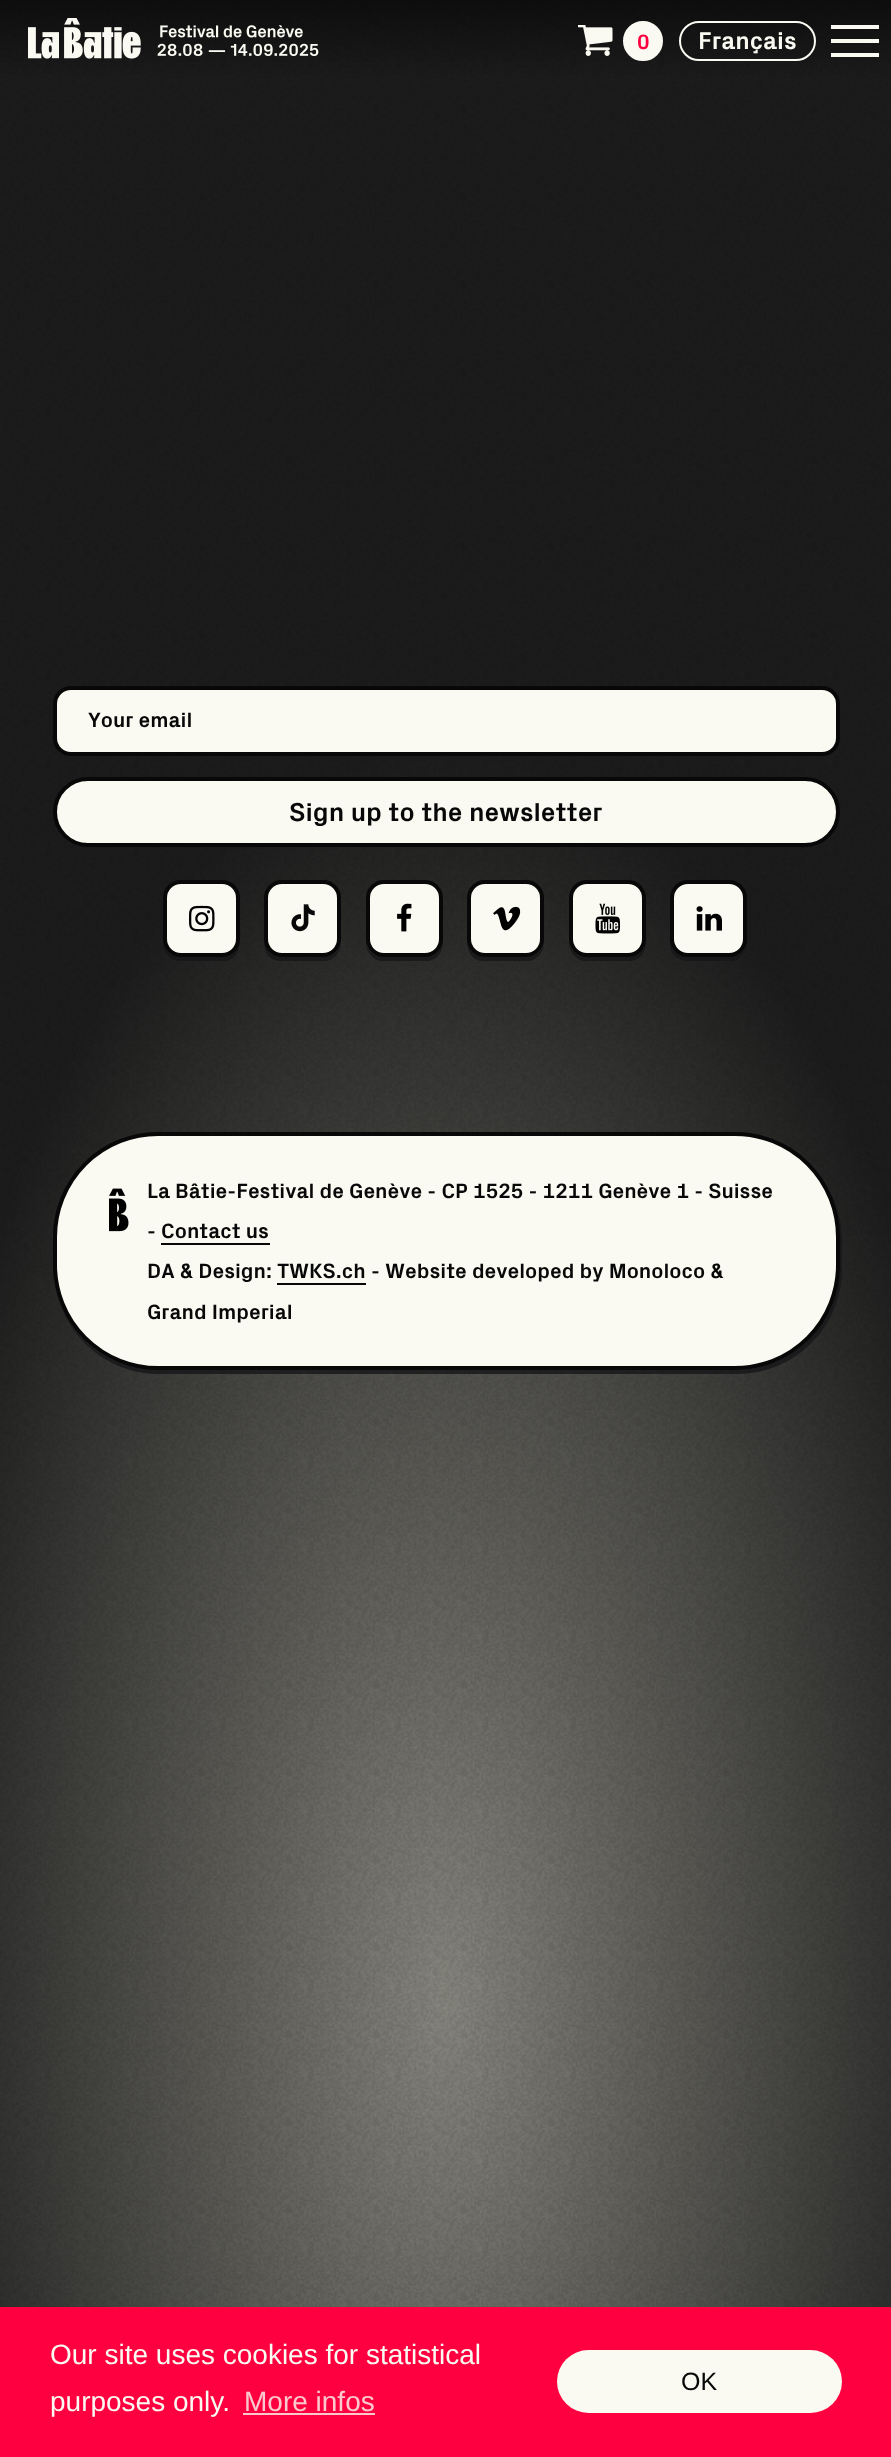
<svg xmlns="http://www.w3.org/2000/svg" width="891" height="2457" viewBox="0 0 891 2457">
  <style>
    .t1 { font: bold 21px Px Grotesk; fill: #fe003f; }
    .t2 { font: bold 24.5px Px Grotesk; fill: #fafaf2; }
    .t3 { font: bold 21px Px Grotesk; fill: #080808; }
    .t4 { font: bold 26.25px Px Grotesk; fill: #080808; }
    .t5 { font: 28px Liberation Sans; fill: #fafaf2; }
    .t6 { font: 28px Liberation Sans; fill: #fbc8ce; }
    .t7 { font: 25px Liberation Sans; fill: #080808; }
  </style>
  <rect width="100%" height="100%" fill="#fff"/>
  <image x="0" y="0" width="891" height="2307" href="images/1.png"/>
  <image x="28" y="18" width="291" height="41" href="images/2.png"/>
  <circle cx="643" cy="41" r="18" fill="#fafaf2" stroke="#fafaf2" stroke-width="4"/>
  <image x="578" y="25" width="35" height="31" href="images/3.png"/>
  <text x="637" y="49" class="t1">0</text>
  <rect x="680" y="22" width="135" height="38" rx="19" fill="none" stroke="#fafaf2" stroke-width="2"/>
  <text x="698" y="49" class="t2">Français</text>
  <rect x="831" y="53" width="48" height="4" fill="#fafaf2"/>
  <rect x="831" y="25" width="48" height="4" fill="#fafaf2"/>
  <rect x="831" y="39" width="48" height="4" fill="#fafaf2"/>
  <rect x="55" y="688" width="783" height="66" rx="16" fill="#fafaf2" stroke="#080808" stroke-width="4"/>
  <text x="88" y="727" class="t3">Your email</text>
  <rect x="55" y="779" width="783" height="66" rx="33" fill="#fafaf2" stroke="#080808" stroke-width="4"/>
  <text x="289" y="821" class="t4">Sign up to the newsletter</text>
  <path d="M163 943C163 951 169 959 177 961H188H226C242 957 240 942 240 929V899V940C240 949 232 957 222 957H180C172 957 164 951 163 943Z" fill="#161518cc"/>
  <rect x="165" y="882" width="73" height="73" rx="16" fill="#fafaf2" stroke="#080808" stroke-width="4"/>
  <image x="189" y="905" width="26" height="27" href="images/4.png"/>
  <path d="M264 899V929C264 942 262 957 278 961H296H327C335 959 341 951 341 943C340 951 332 957 324 957H282C272 957 264 949 264 940Z" fill="#161518cc"/>
  <rect x="266" y="882" width="73" height="73" rx="16" fill="#fafaf2" stroke="#080808" stroke-width="4"/>
  <image x="291" y="904" width="24" height="28" href="images/5.png"/>
  <path d="M366 943C366 951 372 959 380 961H391H429C445 957 443 942 443 929V899V940C443 949 435 957 425 957H383C375 957 367 951 366 943Z" fill="#161518cc"/>
  <rect x="368" y="882" width="73" height="73" rx="16" fill="#fafaf2" stroke="#080808" stroke-width="4"/>
  <image x="397" y="903" width="15" height="29" href="images/6.png"/>
  <path d="M467 899V929C467 942 465 957 481 961H499H530C538 959 544 951 544 943C543 951 535 957 527 957H485C475 957 467 949 467 940Z" fill="#161518cc"/>
  <rect x="469" y="882" width="73" height="73" rx="16" fill="#fafaf2" stroke="#080808" stroke-width="4"/>
  <image x="493" y="906" width="28" height="25" href="images/7.png"/>
  <path d="M569 943C569 951 575 959 583 961H594H632C648 957 646 942 646 929V899V940C646 949 638 957 628 957H586C578 957 570 951 569 943Z" fill="#161518cc"/>
  <rect x="571" y="882" width="73" height="73" rx="16" fill="#fafaf2" stroke="#080808" stroke-width="4"/>
  <image x="595" y="903" width="26" height="31" href="images/8.png"/>
  <path d="M670 899V947C674 963 689 961 702 961H733C741 959 747 951 747 943C746 951 738 957 730 957H688C678 957 670 949 670 940Z" fill="#161518cc"/>
  <rect x="672" y="882" width="73" height="73" rx="16" fill="#fafaf2" stroke="#080808" stroke-width="4"/>
  <image x="696" y="906" width="26" height="25" href="images/9.png"/>
  <path d="M61 1306C76 1346 114 1374 159 1374H737C795 1374 842 1327 842 1269V1241C842 1222 837 1205 829 1190C836 1204 840 1220 840 1237V1265C840 1323 793 1370 735 1370H158C114 1370 77 1344 61 1306Z" fill="#161518cc"/>
  <rect x="55" y="1134" width="783" height="234" rx="103" fill="#fafaf2" stroke="#080808" stroke-width="4"/>
  <image x="109" y="1188" width="20" height="44" href="images/10.png"/>
  <text x="147" y="1198" class="t3">La Bâtie-Festival de Genève - CP 1525 - 1211 Genève 1 - Suisse</text>
  <text x="147" y="1238" class="t3">- Contact us</text>
  <rect x="161" y="1243" width="109" height="2" fill="#080808"/>
  <text x="147" y="1278" class="t3">DA &amp; Design: TWKS.ch</text>
  <text x="371" y="1278" class="t3">- Website developed by Monoloco &amp;</text>
  <rect x="277" y="1283" width="89" height="2" fill="#080808"/>
  <text x="147" y="1319" class="t3">Grand Imperial</text>
  <rect x="0" y="2307" width="891" height="150" fill="#fe003f"/>
  <text x="50" y="2364" class="t5">Our site uses cookies for statistical</text>
  <text x="50" y="2411" class="t5">purposes only.</text>
  <text x="244" y="2411" class="t6">More infos</text>
  <rect x="243" y="2413" width="132" height="2" fill="#fbc8ce"/>
  <rect x="557" y="2350" width="285" height="63" rx="31.5" fill="#fafaf2"/>
  <text x="681" y="2390" class="t7">OK</text>
</svg>
